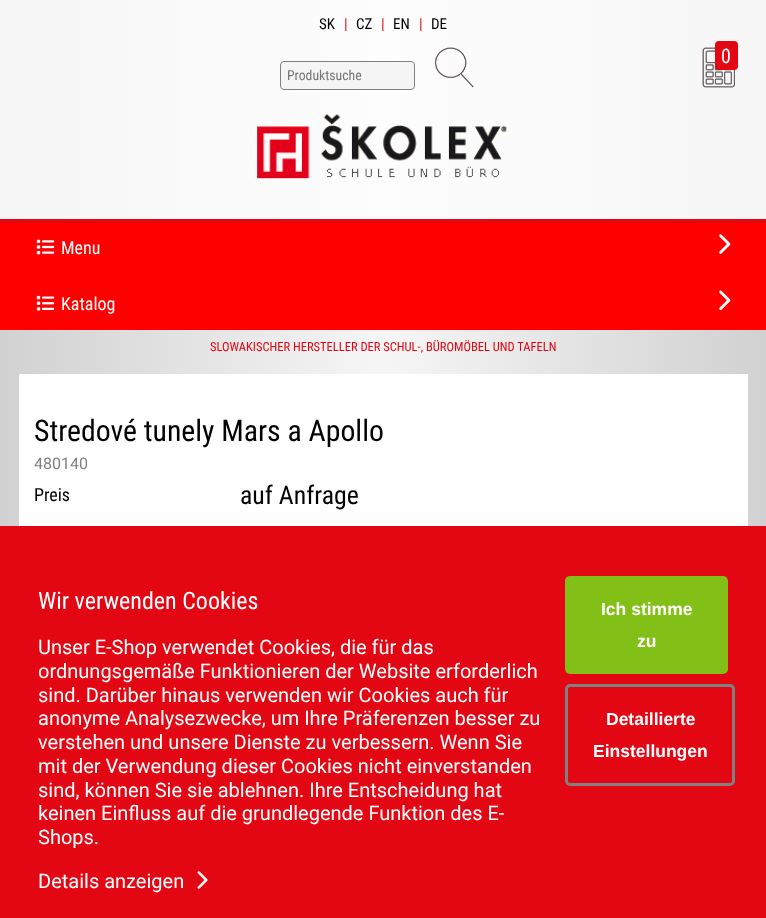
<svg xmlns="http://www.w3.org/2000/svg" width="766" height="918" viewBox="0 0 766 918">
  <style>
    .t1 { font: 15px Roboto Condensed; fill: #000; }
    .t2 { font: 15px Roboto Condensed; fill: #e30613; }
    .t3 { font: 20px Roboto Condensed; fill: #fff; }
    .t4 { font: 13.75px Roboto Condensed; fill: #757575; }
    .t5 { font: 18px Roboto Condensed; fill: #fff; }
    .t6 { font: 12.5px Roboto Condensed; fill: #e30613; }
    .t7 { font: 29.75px Roboto Condensed; fill: #000; }
    .t8 { font: 16px Roboto; fill: #808080; }
    .t9 { font: 18px Roboto Condensed; fill: #000; }
    .t10 { font: 25.75px Roboto Condensed; fill: #000; }
    .t11 { font: 24px Roboto Condensed; fill: #fff; }
    .t12 { font: 20px Roboto; fill: #fff; }
    .t13 { font: bold 17.5px Liberation Sans; fill: #fff; }
  </style>
  <defs>
    <linearGradient id="g1" gradientUnits="userSpaceOnUse" x1="0" y1="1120" x2="766" y2="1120"><stop offset="0" stop-color="#d1d1d1"/><stop offset="0.5" stop-color="#f6f6f6"/><stop offset="1" stop-color="#d1d1d1"/></linearGradient>
    <linearGradient id="g2" gradientUnits="userSpaceOnUse" x1="0" y1="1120" x2="766" y2="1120"><stop offset="0" stop-color="#f6f6f6"/><stop offset="0.5" stop-color="#fdfdfd"/><stop offset="1" stop-color="#f6f6f6"/></linearGradient>
  </defs>
  <rect width="100%" height="100%" fill="#fff"/>
  <rect x="0" y="330" width="766" height="196" fill="url(#g1)"/>
  <rect x="0" y="0" width="766" height="219" fill="url(#g2)"/>
  <rect x="0" y="219" width="766" height="4" fill="#e30613"/>
  <text x="319" y="29" class="t1">SK</text>
  <text x="344" y="29" class="t2">|</text>
  <text x="356" y="29" class="t1">CZ</text>
  <text x="381" y="29" class="t2">|</text>
  <text x="393" y="29" class="t1">EN</text>
  <text x="419" y="29" class="t2">|</text>
  <text x="431" y="29" class="t1">DE</text>
  <image x="702" y="47" width="33" height="41" href="images/1.png"/>
  <rect x="715" y="41" width="23" height="29" rx="4" fill="#e30613"/>
  <text x="721" y="63" class="t3">0</text>
  <rect x="280.5" y="61.5" width="134" height="28" rx="3.5" fill="#f5f5f5" stroke="#808080"/>
  <text x="287" y="80" class="t4">Produktsuche</text>
  <image x="435" y="47" width="39" height="41" href="images/2.png"/>
  <image x="257" y="114" width="250" height="65" href="images/3.png"/>
  <rect x="0" y="223" width="766" height="107" fill="#f00"/>
  <image x="36" y="239" width="19" height="16" href="images/4.png"/>
  <text x="61" y="254" class="t5">Menu</text>
  <image x="719" y="234" width="12" height="20" href="images/5.png"/>
  <image x="36" y="295" width="19" height="16" href="images/6.png"/>
  <text x="61" y="310" class="t5">Katalog</text>
  <image x="719" y="290" width="12" height="21" href="images/7.png"/>
  <text x="210" y="351" class="t6">SLOWAKISCHER HERSTELLER DER SCHUL-, BÜROMÖBEL UND TAFELN</text>
  <rect x="19" y="374" width="729" height="152" fill="#fff"/>
  <text x="34" y="441" class="t7">Stredové tunely Mars a Apollo</text>
  <text x="34" y="469" class="t8">480140</text>
  <text x="34" y="501" class="t9">Preis</text>
  <text x="240" y="504" class="t10">auf Anfrage</text>
  <rect x="0" y="526" width="766" height="392" fill="#e30613"/>
  <text x="38" y="609" class="t11">Wir verwenden Cookies</text>
  <text x="38" y="654" class="t12">Unser E-Shop verwendet Cookies, die für das</text>
  <text x="38" y="678" class="t12">ordnungsgemäße Funktionieren der Website erforderlich</text>
  <text x="38" y="702" class="t12">sind. Darüber hinaus verwenden wir Cookies auch für</text>
  <text x="38" y="725" class="t12">anonyme Analysezwecke, um Ihre Präferenzen besser zu</text>
  <text x="38" y="749" class="t12">verstehen und unsere Dienste zu verbessern. Wenn Sie</text>
  <text x="38" y="773" class="t12">mit der Verwendung dieser Cookies nicht einverstanden</text>
  <text x="38" y="797" class="t12">sind, können Sie sie ablehnen. Ihre Entscheidung hat</text>
  <text x="38" y="820" class="t12">keinen Einfluss auf die grundlegende Funktion des E-</text>
  <text x="38" y="844" class="t12">Shops.</text>
  <text x="38" y="888" class="t12">Details anzeigen</text>
  <image x="197" y="871" width="11" height="18" href="images/8.png"/>
  <rect x="565" y="576" width="163" height="98" rx="5" fill="#82c017"/>
  <text x="601" y="615" class="t13">Ich stimme</text>
  <text x="637" y="647" class="t13">zu</text>
  <rect x="566.5" y="685.5" width="167" height="99" rx="3.5" fill="none" stroke="#808080" stroke-width="3"/>
  <text x="606" y="725" class="t13">Detaillierte</text>
  <text x="593" y="757" class="t13">Einstellungen</text>
</svg>
